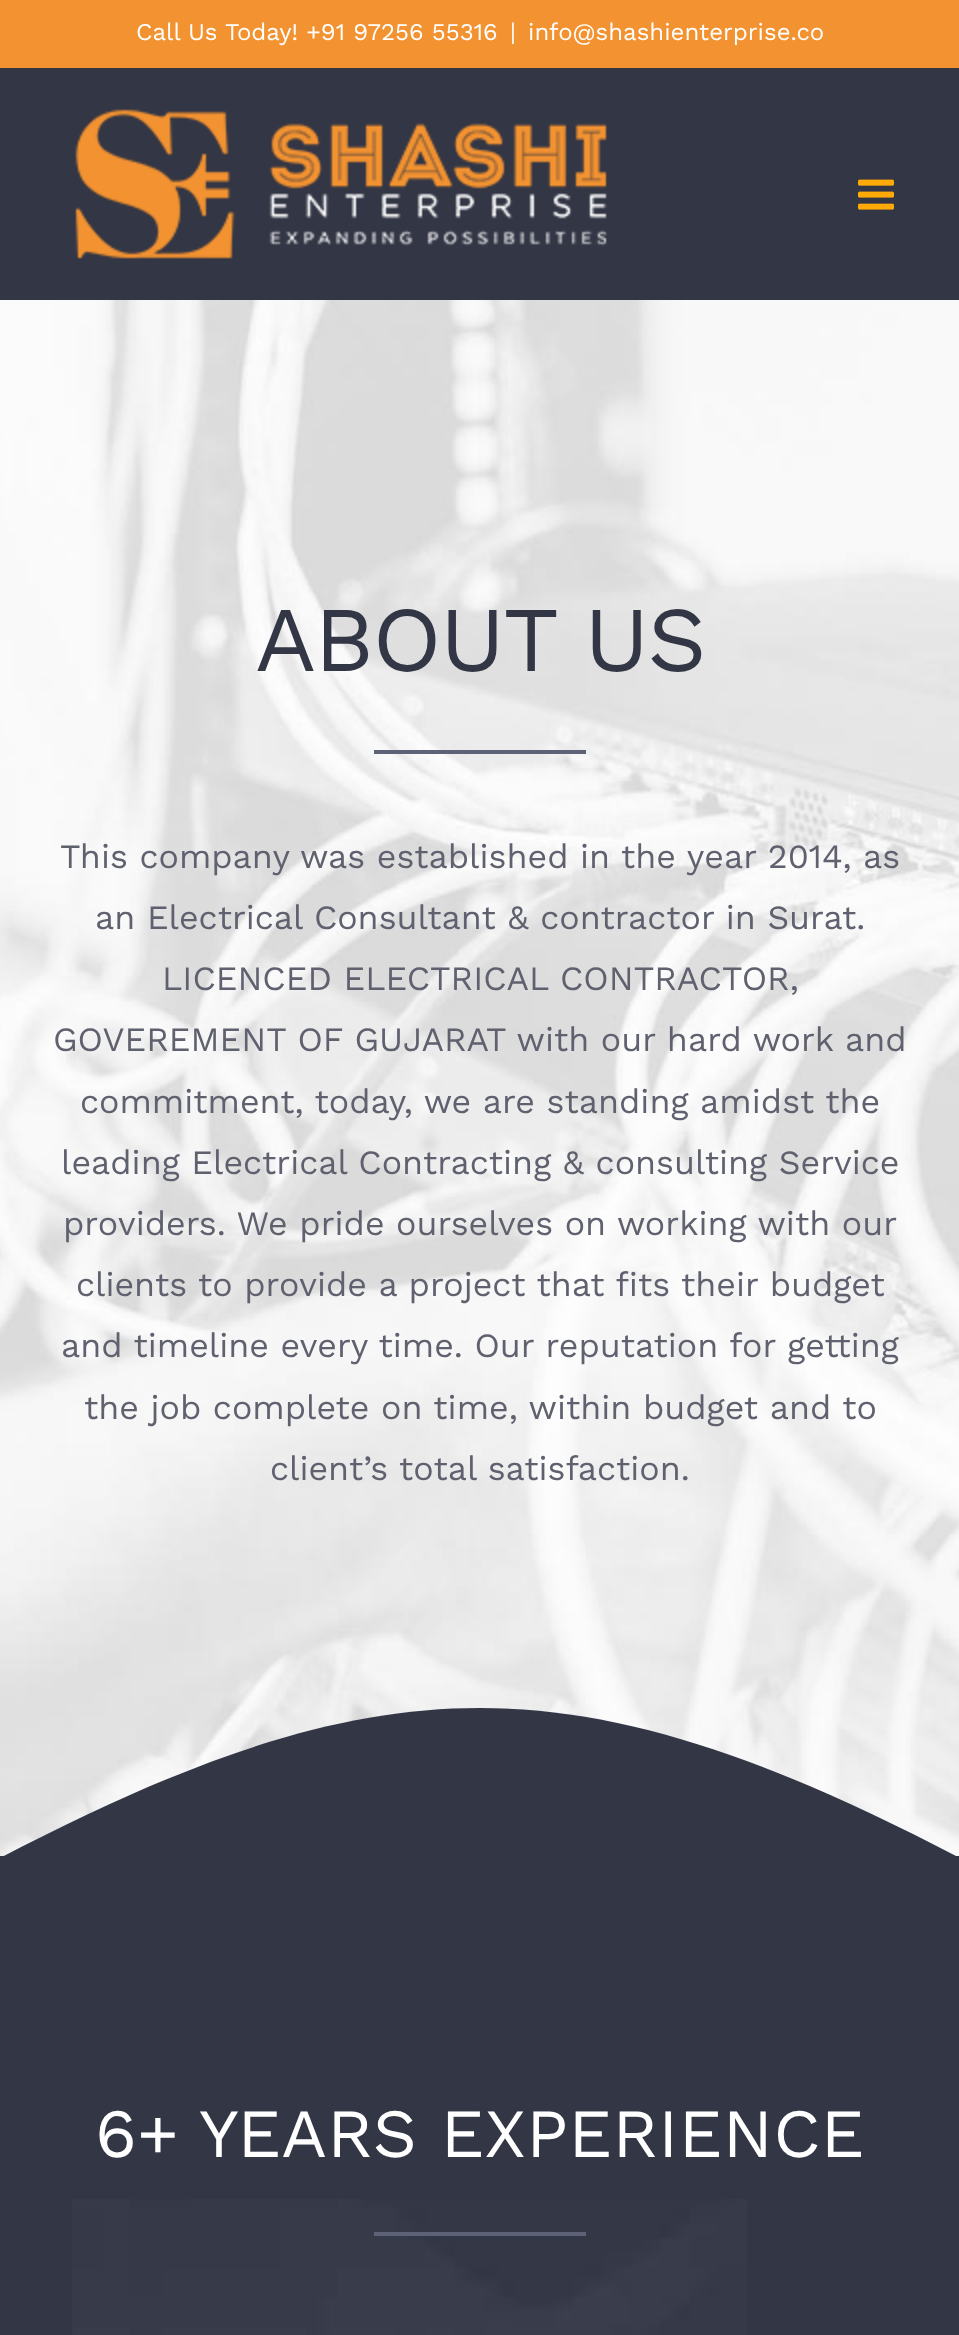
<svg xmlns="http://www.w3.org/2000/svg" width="959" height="2335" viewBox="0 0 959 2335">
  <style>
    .t1 { font: 24px Work Sans; fill: #fff; }
    .t2 { font: 92.5px Work Sans; letter-spacing: -2px; fill: #333645; }
    .t3 { font: 34px Work Sans; fill: #5f616f; }
    .t4 { font: 69px Work Sans; fill: #fff; }
  </style>
  <rect width="100%" height="100%" fill="#333645"/>
  <rect x="0" y="0" width="959" height="68" fill="#f39230"/>
  <text x="136" y="40" class="t1">Call Us Today! +91 97256 55316</text>
  <text x="510" y="40" class="t1">|</text>
  <text x="528" y="40" class="t1">info@shashienterprise.co</text>
  <image x="75" y="109" width="532" height="150" href="images/1.png"/>
  <image x="858" y="179" width="36" height="31" href="images/2.png"/>
  <image x="0" y="300" width="959" height="1556" href="images/3.png"/>
  <text x="255" y="671" class="t2">ABOUT US</text>
  <rect x="374" y="750" width="212" height="4" fill="#5e6276"/>
  <text x="60" y="868" class="t3">This company was established in the year 2014, as</text>
  <text x="95" y="929" class="t3">an Electrical Consultant &amp; contractor in Surat.</text>
  <text x="162" y="990" class="t3">LICENCED ELECTRICAL CONTRACTOR,</text>
  <text x="53" y="1051" class="t3">GOVEREMENT OF GUJARAT with our hard work and</text>
  <text x="80" y="1113" class="t3">commitment, today, we are standing amidst the</text>
  <text x="61" y="1174" class="t3">leading Electrical Contracting &amp; consulting Service</text>
  <text x="63" y="1235" class="t3">providers. We pride ourselves on working with our</text>
  <text x="76" y="1296" class="t3">clients to provide a project that fits their budget</text>
  <text x="61" y="1357" class="t3">and timeline every time. Our reputation for getting</text>
  <text x="84" y="1419" class="t3">the job complete on time, within budget and to</text>
  <text x="270" y="1480" class="t3">client’s total satisfaction.</text>
  <path d="M0 1858C384 1658 576 1658 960 1858Z" fill="#333645"/>
  <image x="72" y="2199" width="675" height="136" href="images/4.png"/>
  <text x="95" y="2157" class="t4">6+ YEARS EXPERIENCE</text>
  <rect x="374" y="2232" width="212" height="4" fill="#5e6276"/>
</svg>
